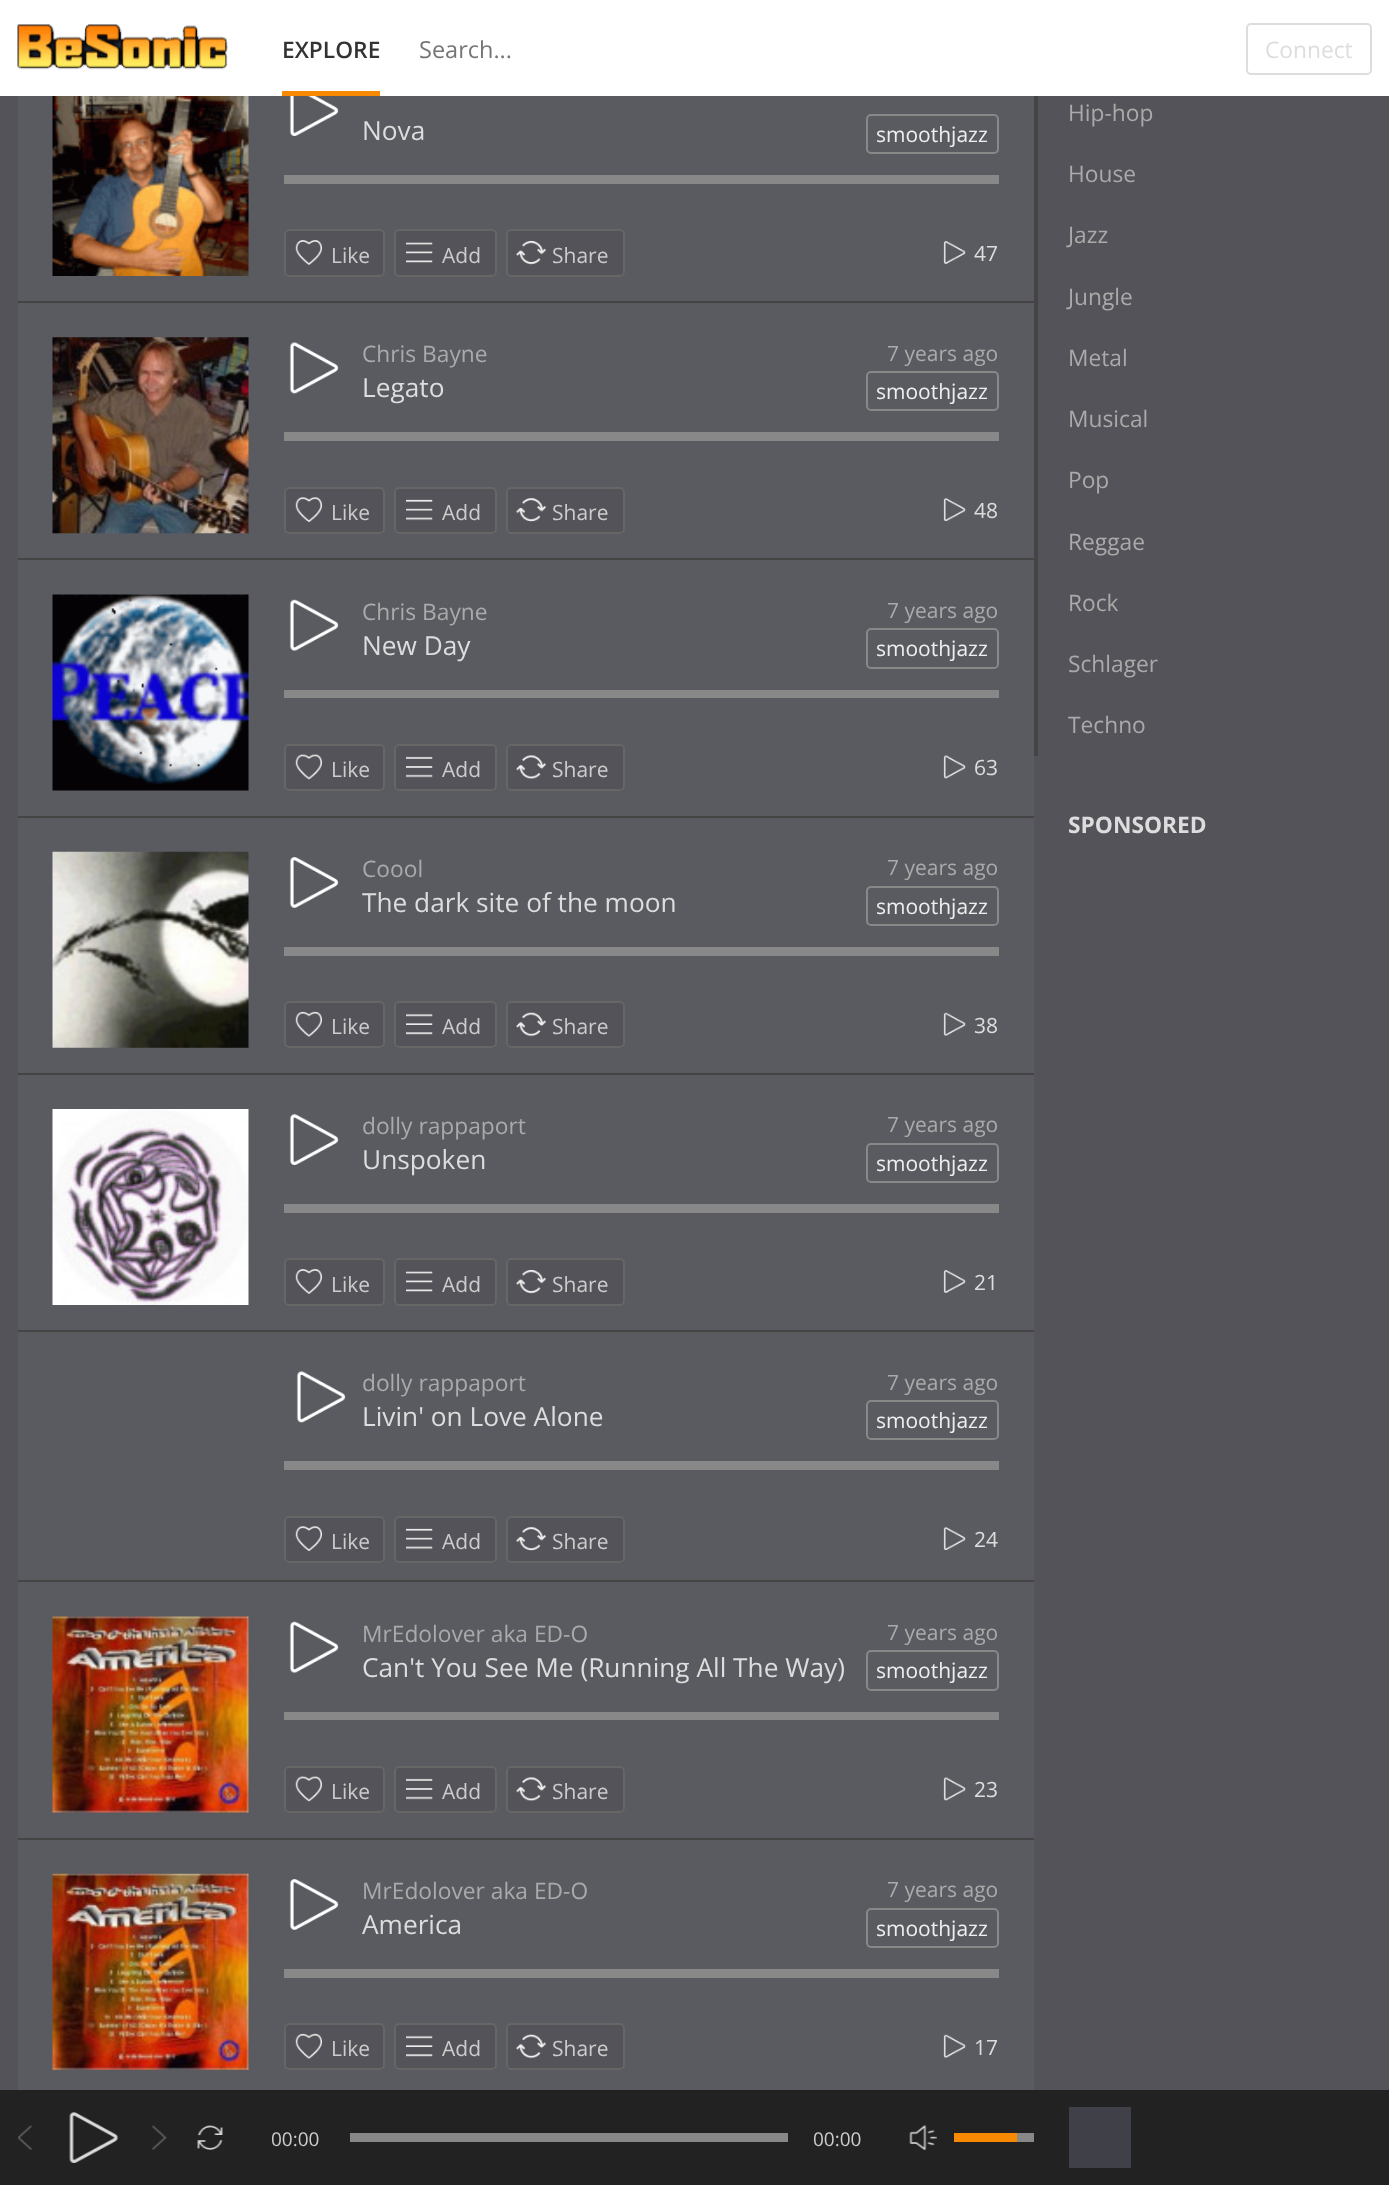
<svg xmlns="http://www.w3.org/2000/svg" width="1389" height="2185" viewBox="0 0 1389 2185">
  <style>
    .t1 { font: 600 22.75px Open Sans; fill: #333; }
    .t2 { font: 23.5px Open Sans; fill: #757575; }
    .t3 { font: 22.75px Open Sans; fill: #ddd; }
    .t4 { font: 26.25px Open Sans; fill: #ddd; }
    .t5 { font: 21px Open Sans; fill: #eee; }
    .t6 { font: 21px Open Sans; fill: #ccc; }
    .t7 { font: 21px Open Sans; fill: #ddd; }
    .t8 { font: 22.75px Open Sans; fill: #aaa; }
    .t9 { font: 21px Open Sans; fill: #aaa; }
    .t10 { font: bold 22.75px Open Sans; fill: #ddd; }
    .t11 { font: 19px Open Sans; fill: #ccc; }
  </style>
  <rect width="100%" height="100%" fill="#535359"/>
  <rect x="0" y="0" width="1389" height="96" fill="#fff"/>
  <image x="17" y="24" width="211" height="46" href="images/1.png"/>
  <rect x="282" y="91" width="98" height="5" fill="#f98900"/>
  <text x="282" y="58" class="t1">EXPLORE</text>
  <text x="419" y="58" class="t2">Search...</text>
  <rect x="1247" y="24" width="124" height="50" rx="4" fill="none" stroke="#ddd" stroke-width="2"/>
  <text x="1265" y="58" class="t3">Connect</text>
  <rect x="18" y="96" width="1016" height="1994" fill="#595b61"/>
  <rect x="18" y="301" width="1016" height="2" fill="#444"/>
  <image x="52" y="96" width="197" height="180" href="images/2.png"/>
  <image x="289" y="96" width="50" height="40" href="images/3.png"/>
  <text x="362" y="140" class="t4">Nova</text>
  <rect x="867" y="115" width="131" height="38" rx="4" fill="none" stroke="#888" stroke-width="2"/>
  <text x="876" y="142" class="t5">smoothjazz</text>
  <rect x="284" y="175" width="715" height="9" fill="#888"/>
  <rect x="284" y="229" width="101" height="48" rx="5" fill="#535359"/>
  <image x="295" y="239" width="27" height="27" href="images/4.png"/>
  <rect x="285" y="230" width="99" height="46" rx="4" fill="none" stroke="#666" stroke-width="2"/>
  <text x="331" y="263" class="t6">Like</text>
  <rect x="394" y="229" width="103" height="48" rx="5" fill="#535359"/>
  <image x="406" y="242" width="27" height="21" href="images/5.png"/>
  <rect x="395" y="230" width="101" height="46" rx="4" fill="none" stroke="#666" stroke-width="2"/>
  <text x="442" y="263" class="t6">Add</text>
  <rect x="506" y="229" width="119" height="48" rx="5" fill="#535359"/>
  <image x="516" y="240" width="30" height="25" href="images/6.png"/>
  <rect x="507" y="230" width="117" height="46" rx="4" fill="none" stroke="#666" stroke-width="2"/>
  <text x="552" y="263" class="t6">Share</text>
  <image x="943" y="241" width="23" height="23" href="images/7.png"/>
  <text x="974" y="261" class="t7">47</text>
  <rect x="18" y="558" width="1016" height="2" fill="#444"/>
  <image x="52" y="337" width="197" height="197" href="images/8.png"/>
  <image x="289" y="342" width="50" height="52" href="images/9.png"/>
  <text x="362" y="362" class="t8">Chris Bayne</text>
  <text x="362" y="397" class="t4">Legato</text>
  <rect x="867" y="372" width="131" height="38" rx="4" fill="none" stroke="#888" stroke-width="2"/>
  <text x="876" y="399" class="t5">smoothjazz</text>
  <text x="887" y="361" class="t9">7 years ago</text>
  <rect x="284" y="432" width="715" height="9" fill="#888"/>
  <rect x="284" y="487" width="101" height="47" rx="5" fill="#535359"/>
  <image x="295" y="496" width="27" height="27" href="images/10.png"/>
  <rect x="285" y="488" width="99" height="45" rx="4" fill="none" stroke="#666" stroke-width="2"/>
  <text x="331" y="520" class="t6">Like</text>
  <rect x="394" y="487" width="103" height="47" rx="5" fill="#535359"/>
  <image x="406" y="499" width="27" height="22" href="images/11.png"/>
  <rect x="395" y="488" width="101" height="45" rx="4" fill="none" stroke="#666" stroke-width="2"/>
  <text x="442" y="520" class="t6">Add</text>
  <rect x="506" y="487" width="119" height="47" rx="5" fill="#535359"/>
  <image x="516" y="497" width="30" height="25" href="images/12.png"/>
  <rect x="507" y="488" width="117" height="45" rx="4" fill="none" stroke="#666" stroke-width="2"/>
  <text x="552" y="520" class="t6">Share</text>
  <image x="943" y="498" width="23" height="23" href="images/13.png"/>
  <text x="974" y="518" class="t7">48</text>
  <rect x="18" y="816" width="1016" height="2" fill="#444"/>
  <image x="52" y="594" width="197" height="197" href="images/14.png"/>
  <image x="289" y="599" width="50" height="52" href="images/15.png"/>
  <text x="362" y="620" class="t8">Chris Bayne</text>
  <text x="362" y="655" class="t4">New Day</text>
  <rect x="867" y="629" width="131" height="39" rx="4" fill="none" stroke="#888" stroke-width="2"/>
  <text x="876" y="656" class="t5">smoothjazz</text>
  <text x="887" y="618" class="t9">7 years ago</text>
  <rect x="284" y="690" width="715" height="8" fill="#888"/>
  <rect x="284" y="744" width="101" height="47" rx="5" fill="#535359"/>
  <image x="295" y="754" width="27" height="26" href="images/16.png"/>
  <rect x="285" y="745" width="99" height="45" rx="4" fill="none" stroke="#666" stroke-width="2"/>
  <text x="331" y="777" class="t6">Like</text>
  <rect x="394" y="744" width="103" height="47" rx="5" fill="#535359"/>
  <image x="406" y="756" width="27" height="22" href="images/17.png"/>
  <rect x="395" y="745" width="101" height="45" rx="4" fill="none" stroke="#666" stroke-width="2"/>
  <text x="442" y="777" class="t6">Add</text>
  <rect x="506" y="744" width="119" height="47" rx="5" fill="#535359"/>
  <image x="516" y="754" width="30" height="26" href="images/18.png"/>
  <rect x="507" y="745" width="117" height="45" rx="4" fill="none" stroke="#666" stroke-width="2"/>
  <text x="552" y="777" class="t6">Share</text>
  <image x="943" y="755" width="23" height="24" href="images/19.png"/>
  <text x="974" y="775" class="t7">63</text>
  <rect x="18" y="1073" width="1016" height="2" fill="#444"/>
  <image x="52" y="851" width="197" height="197" href="images/20.png"/>
  <image x="289" y="857" width="50" height="51" href="images/21.png"/>
  <text x="362" y="877" class="t8">Coool</text>
  <text x="362" y="912" class="t4">The dark site of the moon</text>
  <rect x="867" y="887" width="131" height="38" rx="4" fill="none" stroke="#888" stroke-width="2"/>
  <text x="876" y="914" class="t5">smoothjazz</text>
  <text x="887" y="875" class="t9">7 years ago</text>
  <rect x="284" y="947" width="715" height="9" fill="#888"/>
  <rect x="284" y="1001" width="101" height="47" rx="5" fill="#535359"/>
  <image x="295" y="1011" width="27" height="26" href="images/22.png"/>
  <rect x="285" y="1002" width="99" height="45" rx="4" fill="none" stroke="#666" stroke-width="2"/>
  <text x="331" y="1034" class="t6">Like</text>
  <rect x="394" y="1001" width="103" height="47" rx="5" fill="#535359"/>
  <image x="406" y="1013" width="27" height="22" href="images/23.png"/>
  <rect x="395" y="1002" width="101" height="45" rx="4" fill="none" stroke="#666" stroke-width="2"/>
  <text x="442" y="1034" class="t6">Add</text>
  <rect x="506" y="1001" width="119" height="47" rx="5" fill="#535359"/>
  <image x="516" y="1012" width="30" height="25" href="images/24.png"/>
  <rect x="507" y="1002" width="117" height="45" rx="4" fill="none" stroke="#666" stroke-width="2"/>
  <text x="552" y="1034" class="t6">Share</text>
  <image x="943" y="1012" width="23" height="24" href="images/25.png"/>
  <text x="974" y="1033" class="t7">38</text>
  <rect x="18" y="1330" width="1016" height="2" fill="#444"/>
  <image x="52" y="1109" width="197" height="196" href="images/26.png"/>
  <image x="289" y="1114" width="50" height="51" href="images/27.png"/>
  <text x="362" y="1134" class="t8">dolly rappaport</text>
  <text x="362" y="1169" class="t4">Unspoken</text>
  <rect x="867" y="1144" width="131" height="38" rx="4" fill="none" stroke="#888" stroke-width="2"/>
  <text x="876" y="1171" class="t5">smoothjazz</text>
  <text x="887" y="1132" class="t9">7 years ago</text>
  <rect x="284" y="1204" width="715" height="9" fill="#888"/>
  <rect x="284" y="1258" width="101" height="48" rx="5" fill="#535359"/>
  <image x="295" y="1268" width="27" height="27" href="images/4.png"/>
  <rect x="285" y="1259" width="99" height="46" rx="4" fill="none" stroke="#666" stroke-width="2"/>
  <text x="331" y="1292" class="t6">Like</text>
  <rect x="394" y="1258" width="103" height="48" rx="5" fill="#535359"/>
  <image x="406" y="1271" width="27" height="21" href="images/5.png"/>
  <rect x="395" y="1259" width="101" height="46" rx="4" fill="none" stroke="#666" stroke-width="2"/>
  <text x="442" y="1292" class="t6">Add</text>
  <rect x="506" y="1258" width="119" height="48" rx="5" fill="#535359"/>
  <image x="516" y="1269" width="30" height="25" href="images/6.png"/>
  <rect x="507" y="1259" width="117" height="46" rx="4" fill="none" stroke="#666" stroke-width="2"/>
  <text x="552" y="1292" class="t6">Share</text>
  <image x="943" y="1270" width="23" height="23" href="images/7.png"/>
  <text x="974" y="1290" class="t7">21</text>
  <rect x="18" y="1580" width="1016" height="2" fill="#444"/>
  <image x="296" y="1371" width="50" height="52" href="images/9.png"/>
  <text x="362" y="1391" class="t8">dolly rappaport</text>
  <text x="362" y="1426" class="t4">Livin' on Love Alone</text>
  <rect x="867" y="1401" width="131" height="38" rx="4" fill="none" stroke="#888" stroke-width="2"/>
  <text x="876" y="1428" class="t5">smoothjazz</text>
  <text x="887" y="1390" class="t9">7 years ago</text>
  <rect x="284" y="1461" width="715" height="9" fill="#888"/>
  <rect x="284" y="1516" width="101" height="47" rx="5" fill="#535359"/>
  <image x="295" y="1525" width="27" height="27" href="images/10.png"/>
  <rect x="285" y="1517" width="99" height="45" rx="4" fill="none" stroke="#666" stroke-width="2"/>
  <text x="331" y="1549" class="t6">Like</text>
  <rect x="394" y="1516" width="103" height="47" rx="5" fill="#535359"/>
  <image x="406" y="1528" width="27" height="22" href="images/11.png"/>
  <rect x="395" y="1517" width="101" height="45" rx="4" fill="none" stroke="#666" stroke-width="2"/>
  <text x="442" y="1549" class="t6">Add</text>
  <rect x="506" y="1516" width="119" height="47" rx="5" fill="#535359"/>
  <image x="516" y="1526" width="30" height="25" href="images/12.png"/>
  <rect x="507" y="1517" width="117" height="45" rx="4" fill="none" stroke="#666" stroke-width="2"/>
  <text x="552" y="1549" class="t6">Share</text>
  <image x="943" y="1527" width="23" height="23" href="images/13.png"/>
  <text x="974" y="1547" class="t7">24</text>
  <rect x="18" y="1838" width="1016" height="2" fill="#444"/>
  <image x="52" y="1616" width="197" height="197" href="images/28.png"/>
  <image x="289" y="1621" width="50" height="52" href="images/15.png"/>
  <text x="362" y="1642" class="t8">MrEdolover aka ED-O</text>
  <text x="362" y="1677" class="t4">Can't You See Me (Running All The Way)</text>
  <rect x="867" y="1651" width="131" height="39" rx="4" fill="none" stroke="#888" stroke-width="2"/>
  <text x="876" y="1678" class="t5">smoothjazz</text>
  <text x="887" y="1640" class="t9">7 years ago</text>
  <rect x="284" y="1712" width="715" height="8" fill="#888"/>
  <rect x="284" y="1766" width="101" height="47" rx="5" fill="#535359"/>
  <image x="295" y="1776" width="27" height="26" href="images/16.png"/>
  <rect x="285" y="1767" width="99" height="45" rx="4" fill="none" stroke="#666" stroke-width="2"/>
  <text x="331" y="1799" class="t6">Like</text>
  <rect x="394" y="1766" width="103" height="47" rx="5" fill="#535359"/>
  <image x="406" y="1778" width="27" height="22" href="images/17.png"/>
  <rect x="395" y="1767" width="101" height="45" rx="4" fill="none" stroke="#666" stroke-width="2"/>
  <text x="442" y="1799" class="t6">Add</text>
  <rect x="506" y="1766" width="119" height="47" rx="5" fill="#535359"/>
  <image x="516" y="1776" width="30" height="26" href="images/18.png"/>
  <rect x="507" y="1767" width="117" height="45" rx="4" fill="none" stroke="#666" stroke-width="2"/>
  <text x="552" y="1799" class="t6">Share</text>
  <image x="943" y="1777" width="23" height="24" href="images/19.png"/>
  <text x="974" y="1797" class="t7">23</text>
  <image x="52" y="1873" width="197" height="197" href="images/29.png"/>
  <image x="289" y="1879" width="50" height="51" href="images/21.png"/>
  <text x="362" y="1899" class="t8">MrEdolover aka ED-O</text>
  <text x="362" y="1934" class="t4">America</text>
  <rect x="867" y="1909" width="131" height="38" rx="4" fill="none" stroke="#888" stroke-width="2"/>
  <text x="876" y="1936" class="t5">smoothjazz</text>
  <text x="887" y="1897" class="t9">7 years ago</text>
  <rect x="284" y="1969" width="715" height="9" fill="#888"/>
  <rect x="284" y="2023" width="101" height="47" rx="5" fill="#535359"/>
  <image x="295" y="2033" width="27" height="26" href="images/22.png"/>
  <rect x="285" y="2024" width="99" height="45" rx="4" fill="none" stroke="#666" stroke-width="2"/>
  <text x="331" y="2056" class="t6">Like</text>
  <rect x="394" y="2023" width="103" height="47" rx="5" fill="#535359"/>
  <image x="406" y="2035" width="27" height="22" href="images/23.png"/>
  <rect x="395" y="2024" width="101" height="45" rx="4" fill="none" stroke="#666" stroke-width="2"/>
  <text x="442" y="2056" class="t6">Add</text>
  <rect x="506" y="2023" width="119" height="47" rx="5" fill="#535359"/>
  <image x="516" y="2034" width="30" height="25" href="images/24.png"/>
  <rect x="507" y="2024" width="117" height="45" rx="4" fill="none" stroke="#666" stroke-width="2"/>
  <text x="552" y="2056" class="t6">Share</text>
  <image x="943" y="2034" width="23" height="24" href="images/25.png"/>
  <text x="974" y="2055" class="t7">17</text>
  <rect x="1034" y="96" width="4" height="660" fill="#444"/>
  <text x="1068" y="121" class="t8">Hip-hop</text>
  <text x="1068" y="182" class="t8">House</text>
  <text x="1068" y="243" class="t8">Jazz</text>
  <text x="1068" y="305" class="t8">Jungle</text>
  <text x="1068" y="366" class="t8">Metal</text>
  <text x="1068" y="427" class="t8">Musical</text>
  <text x="1068" y="488" class="t8">Pop</text>
  <text x="1068" y="550" class="t8">Reggae</text>
  <text x="1068" y="611" class="t8">Rock</text>
  <text x="1068" y="672" class="t8">Schlager</text>
  <text x="1068" y="733" class="t8">Techno</text>
  <text x="1068" y="833" class="t10">SPONSORED</text>
  <rect x="0" y="2090" width="1389" height="95" fill="#222"/>
  <image x="18" y="2125" width="14" height="25" href="images/30.png"/>
  <image x="69" y="2112" width="50" height="51" href="images/31.png"/>
  <image x="151" y="2125" width="16" height="25" href="images/32.png"/>
  <image x="197" y="2125" width="26" height="25" href="images/33.png"/>
  <text x="271" y="2146" class="t11">00:00</text>
  <rect x="350" y="2133" width="438" height="9" fill="#888"/>
  <text x="813" y="2146" class="t11">00:00</text>
  <image x="909" y="2125" width="28" height="25" href="images/34.png"/>
  <rect x="1017" y="2133" width="17" height="9" fill="#888"/>
  <rect x="954" y="2133" width="63" height="9" fill="#f98900"/>
  <rect x="1069" y="2107" width="62" height="61" fill="#404048"/>
</svg>
